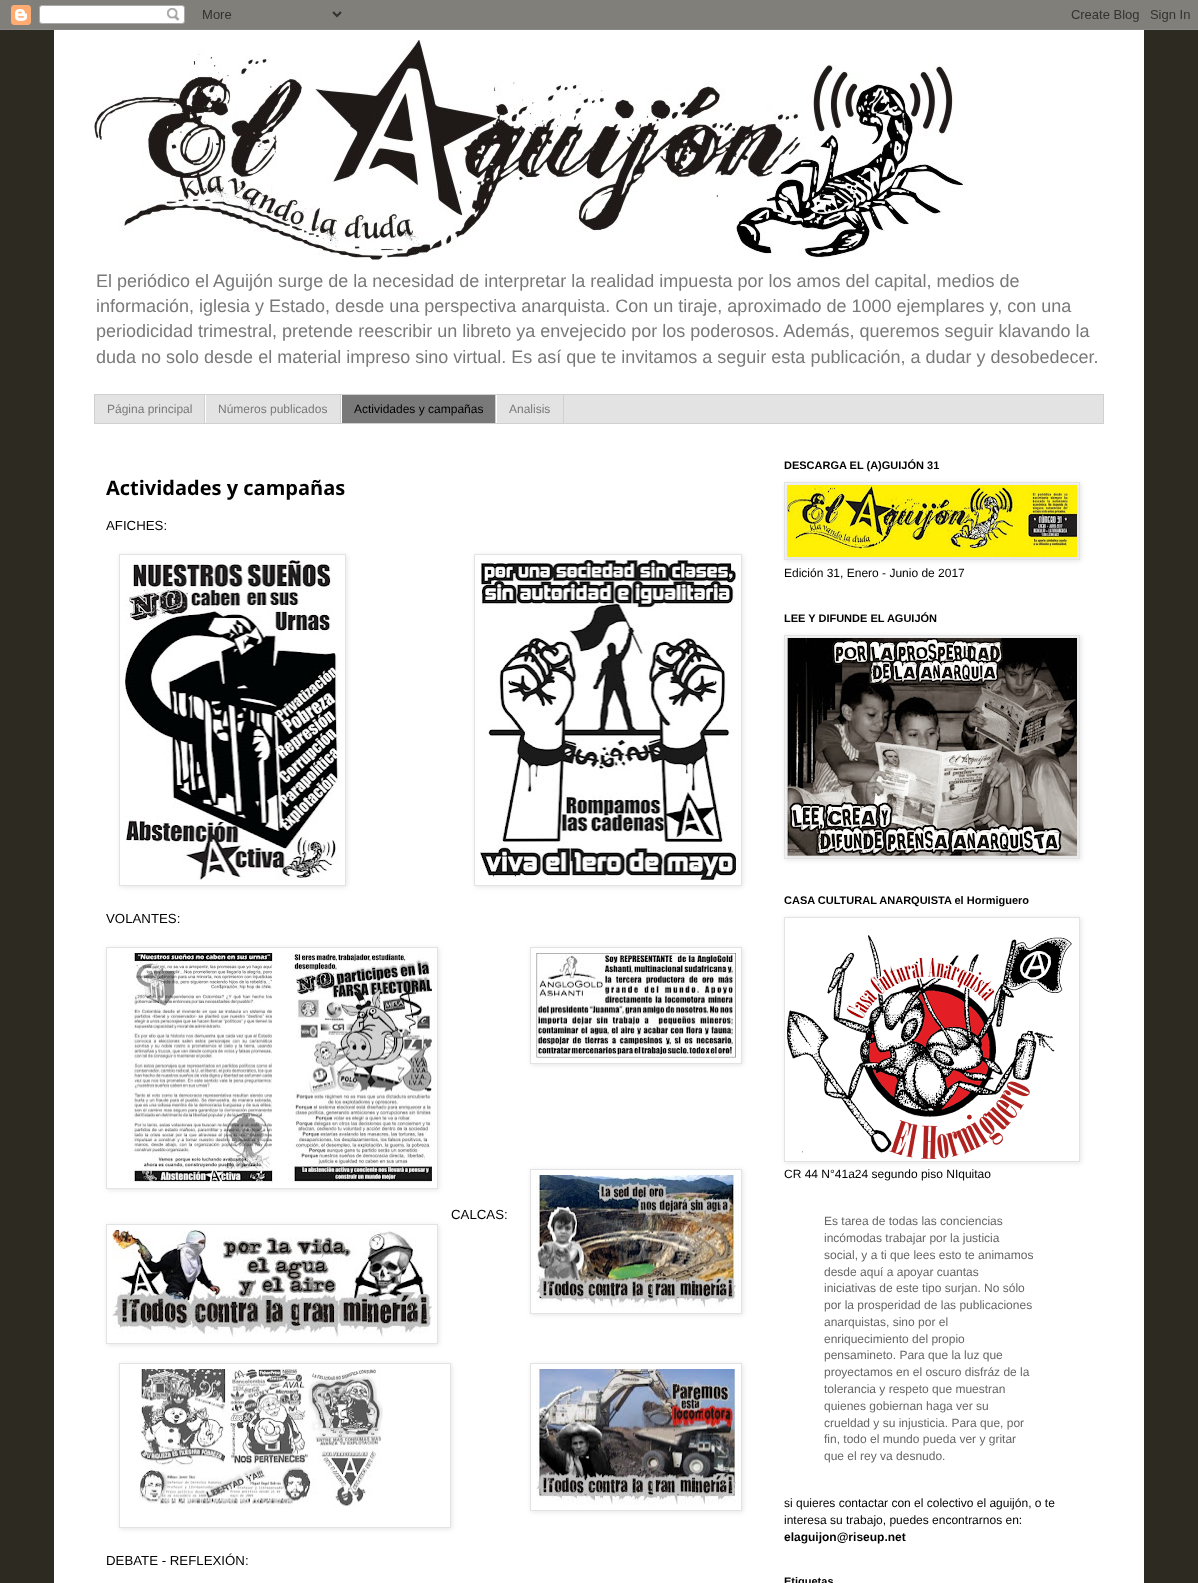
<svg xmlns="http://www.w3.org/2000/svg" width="1198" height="1583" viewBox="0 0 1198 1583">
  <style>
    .t1 { font: 18px Liberation Sans; fill: #797979; }
    .t2 { font: 12px Liberation Sans; fill: #797979; }
    .t3 { font: 12px Liberation Sans; fill: #000; }
    .t4 { font: bold 20px Open Sans; fill: #000; }
    .t5 { font: 13.25px Liberation Sans; fill: #000; }
    .t6 { font: bold 11px Liberation Sans; fill: #000; }
    .t7 { font: 12px Liberation Sans; fill: #666; }
    .t8 { font: bold 12px Liberation Sans; fill: #000; }
  </style>
  <defs>
    <clipPath id="clip1"><path d="M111 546H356V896H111ZM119 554H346V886H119Z" clip-rule="evenodd"/></clipPath>
    <clipPath id="clip2"><path d="M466 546H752V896H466ZM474 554H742V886H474Z" clip-rule="evenodd"/></clipPath>
    <clipPath id="clip3"><path d="M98 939H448V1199H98ZM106 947H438V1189H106Z" clip-rule="evenodd"/></clipPath>
    <clipPath id="clip4"><path d="M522 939H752V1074H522ZM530 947H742V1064H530Z" clip-rule="evenodd"/></clipPath>
    <clipPath id="clip5"><path d="M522 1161H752V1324H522ZM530 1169H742V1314H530Z" clip-rule="evenodd"/></clipPath>
    <clipPath id="clip6"><path d="M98 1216H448V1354H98ZM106 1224H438V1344H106Z" clip-rule="evenodd"/></clipPath>
    <clipPath id="clip7"><path d="M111 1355H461V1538H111ZM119 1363H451V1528H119Z" clip-rule="evenodd"/></clipPath>
    <clipPath id="clip8"><path d="M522 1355H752V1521H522ZM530 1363H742V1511H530Z" clip-rule="evenodd"/></clipPath>
    <clipPath id="clip9"><path d="M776 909H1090V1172H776ZM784 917H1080V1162H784Z" clip-rule="evenodd"/></clipPath>
  </defs>
  <rect width="100%" height="100%" fill="#2d2a21"/>
  <image x="0" y="0" width="1198" height="30" href="images/1.png"/>
  <rect x="54" y="30" width="1090" height="1553" fill="#fff"/>
  <image x="94" y="40" width="872" height="220" href="images/2.png"/>
  <text x="96" y="287" class="t1">El periódico el Aguijón surge de la necesidad de interpretar la realidad impuesta por los amos del capital, medios de</text>
  <text x="96" y="312" class="t1">información, iglesia y Estado, desde una perspectiva anarquista. Con un tiraje, aproximado de 1000 ejemplares y, con una</text>
  <text x="96" y="337" class="t1">periodicidad trimestral, pretende reescribir un libreto ya envejecido por los poderosos. Además, queremos seguir klavando la</text>
  <text x="96" y="363" class="t1">duda no solo desde el material impreso sino virtual. Es así que te invitamos a seguir esta publicación, a dudar y desobedecer.</text>
  <rect x="94.5" y="394.5" width="1009" height="29" fill="#e3e3e3" stroke="#d0d0d0"/>
  <rect x="204" y="395" width="1" height="28" fill="#d0d0d0"/>
  <text x="107" y="413" class="t2">Página principal</text>
  <rect x="340" y="395" width="1" height="28" fill="#d0d0d0"/>
  <rect x="205" y="395" width="1" height="28" fill="#fff"/>
  <text x="218" y="413" class="t2">Números publicados</text>
  <rect x="342" y="395" width="153" height="28" fill="#797979"/>
  <rect x="495" y="395" width="1" height="28" fill="#d0d0d0"/>
  <rect x="341" y="395" width="1" height="28" fill="#fff"/>
  <text x="354" y="413" class="t3">Actividades y campañas</text>
  <rect x="563" y="395" width="1" height="28" fill="#d0d0d0"/>
  <rect x="496" y="395" width="1" height="28" fill="#fff"/>
  <text x="509" y="413" class="t2">Analisis</text>
  <text x="106" y="495" class="t4">Actividades y campañas</text>
  <text x="106" y="530" class="t5">AFICHES:</text>
  <g clip-path="url(#clip1)">
    <rect x="120" y="555" width="227" height="332" fill="#0000001a" filter="blur(2.5px)"/>
  </g>
  <g clip-path="url(#clip2)">
    <rect x="475" y="555" width="268" height="332" fill="#0000001a" filter="blur(2.5px)"/>
  </g>
  <rect x="474.5" y="554.5" width="267" height="331" fill="none" stroke="#e3e3e3"/>
  <image x="480" y="560" width="256" height="320" href="images/3.png"/>
  <rect x="119.5" y="554.5" width="226" height="331" fill="none" stroke="#e3e3e3"/>
  <image x="125" y="560" width="215" height="320" href="images/4.png"/>
  <text x="106" y="923" class="t5">VOLANTES:</text>
  <g clip-path="url(#clip3)">
    <rect x="107" y="948" width="332" height="242" fill="#0000001a" filter="blur(2.5px)"/>
  </g>
  <rect x="106.5" y="947.5" width="331" height="241" fill="none" stroke="#e3e3e3"/>
  <image x="128" y="953" width="304" height="230" href="images/5.png"/>
  <g clip-path="url(#clip4)">
    <rect x="531" y="948" width="212" height="117" fill="#0000001a" filter="blur(2.5px)"/>
  </g>
  <rect x="530.5" y="947.5" width="211" height="116" fill="none" stroke="#e3e3e3"/>
  <image x="536" y="953" width="200" height="105" href="images/6.png"/>
  <text x="451" y="1219" class="t5">CALCAS:</text>
  <g clip-path="url(#clip5)">
    <rect x="531" y="1170" width="212" height="145" fill="#0000001a" filter="blur(2.5px)"/>
  </g>
  <rect x="530.5" y="1169.5" width="211" height="144" fill="none" stroke="#e3e3e3"/>
  <image x="536" y="1175" width="200" height="133" href="images/7.png"/>
  <g clip-path="url(#clip6)">
    <rect x="107" y="1225" width="332" height="120" fill="#0000001a" filter="blur(2.5px)"/>
  </g>
  <rect x="106.5" y="1224.5" width="331" height="119" fill="none" stroke="#e3e3e3"/>
  <image x="112" y="1230" width="320" height="108" href="images/8.png"/>
  <g clip-path="url(#clip7)">
    <rect x="120" y="1364" width="332" height="165" fill="#0000001a" filter="blur(2.5px)"/>
  </g>
  <g clip-path="url(#clip8)">
    <rect x="531" y="1364" width="212" height="148" fill="#0000001a" filter="blur(2.5px)"/>
  </g>
  <rect x="530.5" y="1363.5" width="211" height="147" fill="none" stroke="#e3e3e3"/>
  <image x="536" y="1369" width="200" height="136" href="images/9.png"/>
  <rect x="119.5" y="1363.5" width="331" height="164" fill="none" stroke="#e3e3e3"/>
  <image x="139" y="1369" width="244" height="140" href="images/10.png"/>
  <text x="106" y="1565" class="t5">DEBATE - REFLEXIÓN:</text>
  <text x="784" y="469" class="t6">DESCARGA EL (A)GUIJÓN 31</text>
  <rect x="785" y="483" width="296" height="78" fill="#0000001a" filter="blur(2.5px)"/>
  <rect x="784.5" y="482.5" width="295" height="77" fill="none" stroke="#e3e3e3"/>
  <image x="787" y="485" width="290" height="72" href="images/11.png"/>
  <text x="784" y="577" class="t3">Edición 31, Enero - Junio de 2017</text>
  <text x="784" y="622" class="t6">LEE Y DIFUNDE EL AGUIJÓN</text>
  <rect x="785" y="636" width="296" height="224" fill="#0000001a" filter="blur(2.5px)"/>
  <rect x="784.5" y="635.5" width="295" height="223" fill="none" stroke="#e3e3e3"/>
  <image x="787" y="638" width="290" height="218" href="images/12.png"/>
  <text x="784" y="904" class="t6">CASA CULTURAL ANARQUISTA el Hormiguero</text>
  <g clip-path="url(#clip9)">
    <rect x="785" y="918" width="296" height="245" fill="#0000001a" filter="blur(2.5px)"/>
  </g>
  <rect x="784.5" y="917.5" width="295" height="244" fill="none" stroke="#e3e3e3"/>
  <image x="787" y="920" width="290" height="239" href="images/13.png"/>
  <text x="784" y="1178" class="t3">CR 44 N°41a24 segundo piso NIquitao</text>
  <text x="824" y="1225" class="t7">Es tarea de todas las conciencias</text>
  <text x="824" y="1242" class="t7">incómodas trabajar por la justicia</text>
  <text x="824" y="1259" class="t7">social, y a ti que lees esto te animamos</text>
  <text x="824" y="1276" class="t7">desde aquí a apoyar cuantas</text>
  <text x="824" y="1292" class="t7">iniciativas de este tipo surjan. No sólo</text>
  <text x="824" y="1309" class="t7">por la prosperidad de las publicaciones</text>
  <text x="824" y="1326" class="t7">anarquistas, sino por el</text>
  <text x="824" y="1343" class="t7">enriquecimiento del propio</text>
  <text x="824" y="1359" class="t7">pensamineto. Para que la luz que</text>
  <text x="824" y="1376" class="t7">proyectamos en el oscuro disfráz de la</text>
  <text x="824" y="1393" class="t7">tolerancia y respeto que muestran</text>
  <text x="824" y="1410" class="t7">quienes gobiernan haga ver su</text>
  <text x="824" y="1427" class="t7">crueldad y su injusticia. Para que, por</text>
  <text x="824" y="1443" class="t7">fin, todo el mundo pueda ver y gritar</text>
  <text x="824" y="1460" class="t7">que el rey va desnudo.</text>
  <text x="784" y="1507" class="t3">si quieres contactar con el colectivo el aguijón, o te</text>
  <text x="784" y="1524" class="t3">interesa su trabajo, puedes encontrarnos en:</text>
  <text x="784" y="1541" class="t8">elaguijon@riseup.net</text>
  <text x="784" y="1585" class="t6">Etiquetas</text>
</svg>
